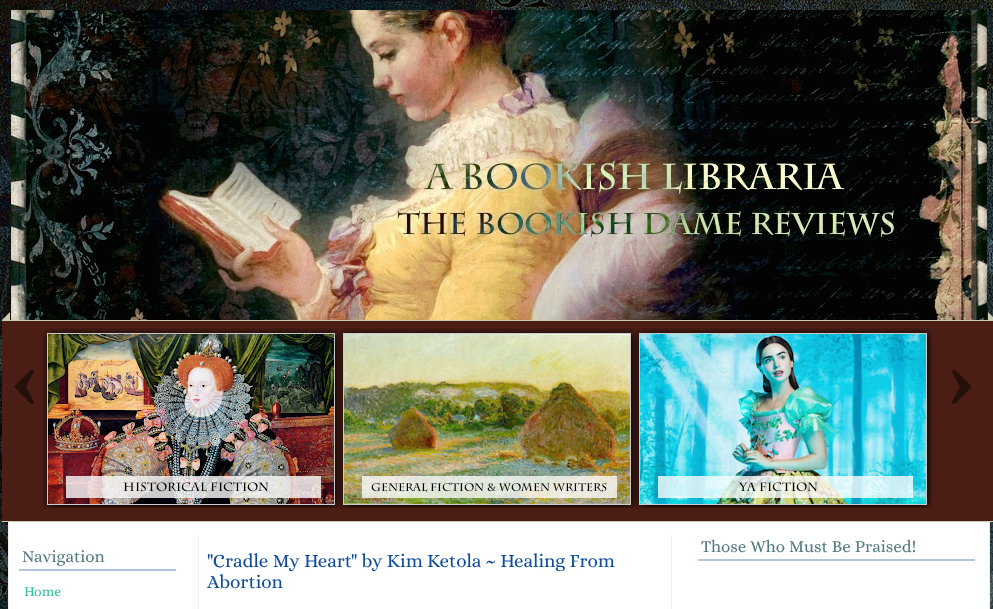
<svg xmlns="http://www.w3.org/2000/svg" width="993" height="609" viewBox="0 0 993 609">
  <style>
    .t1 { font: 17px Alice; fill: #557b83; }
    .t2 { font: 14px Alice; fill: #33bf9e; }
    .t3 { font: 19px Alice; fill: #0e4d9b; }
  </style>
  <defs>
    <clipPath id="clip1"><rect x="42" y="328" width="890" height="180"/></clipPath>
  </defs>
  <rect width="100%" height="100%" fill="#fff"/>
  <image x="0" y="0" width="993" height="609" href="images/1.png"/>
  <image x="11" y="10" width="976" height="310" href="images/2.png"/>
  <rect x="9" y="522" width="980" height="87" fill="#fff"/>
  <rect x="989" y="522" width="1" height="87" fill="#ebedee"/>
  <rect x="8" y="522" width="1" height="87" fill="#ebedee"/>
  <path d="M10 312V328L2 320Z" fill="#cacbb2"/>
  <path d="M988 328V312L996 320Z" fill="#cacbb2"/>
  <rect x="2" y="321" width="991" height="200" fill="#4a1e15"/>
  <rect x="2" y="320" width="991" height="1" fill="#cacbb2"/>
  <rect x="2" y="521" width="991" height="1" fill="#cacbb2"/>
  <image x="14" y="369" width="20" height="35" href="images/3.png"/>
  <g clip-path="url(#clip1)">
    <rect x="48" y="334" width="288" height="172" fill="#000" filter="blur(4px)"/>
  </g>
  <rect x="47.5" y="333.5" width="287" height="171" fill="none" stroke="#ccc"/>
  <image x="48" y="334" width="286" height="170" href="images/4.png"/>
  <g clip-path="url(#clip1)">
    <rect x="344" y="334" width="288" height="172" fill="#000" filter="blur(4px)"/>
  </g>
  <rect x="343.5" y="333.5" width="287" height="171" fill="none" stroke="#ccc"/>
  <image x="344" y="334" width="286" height="170" href="images/5.png"/>
  <g clip-path="url(#clip1)">
    <rect x="640" y="334" width="288" height="172" fill="#000" filter="blur(4px)"/>
  </g>
  <rect x="639.5" y="333.5" width="287" height="171" fill="none" stroke="#ccc"/>
  <image x="640" y="334" width="286" height="170" href="images/6.png"/>
  <image x="952" y="369" width="20" height="35" href="images/7.png"/>
  <rect x="698" y="559" width="277" height="2" fill="#b2c6df"/>
  <text x="701" y="552" class="t1">Those Who Must Be Praised!</text>
  <rect x="19" y="569" width="157" height="2" fill="#b2c6df"/>
  <text x="22" y="562" class="t1">Navigation</text>
  <text x="24" y="596" class="t2">Home</text>
  <rect x="671" y="535" width="1" height="74" fill="#f0f0f0"/>
  <rect x="198" y="535" width="1" height="74" fill="#f0f0f0"/>
  <text x="207" y="567" class="t3">"Cradle My Heart" by Kim Ketola ~ Healing From</text>
  <text x="207" y="588" class="t3">Abortion</text>
</svg>
